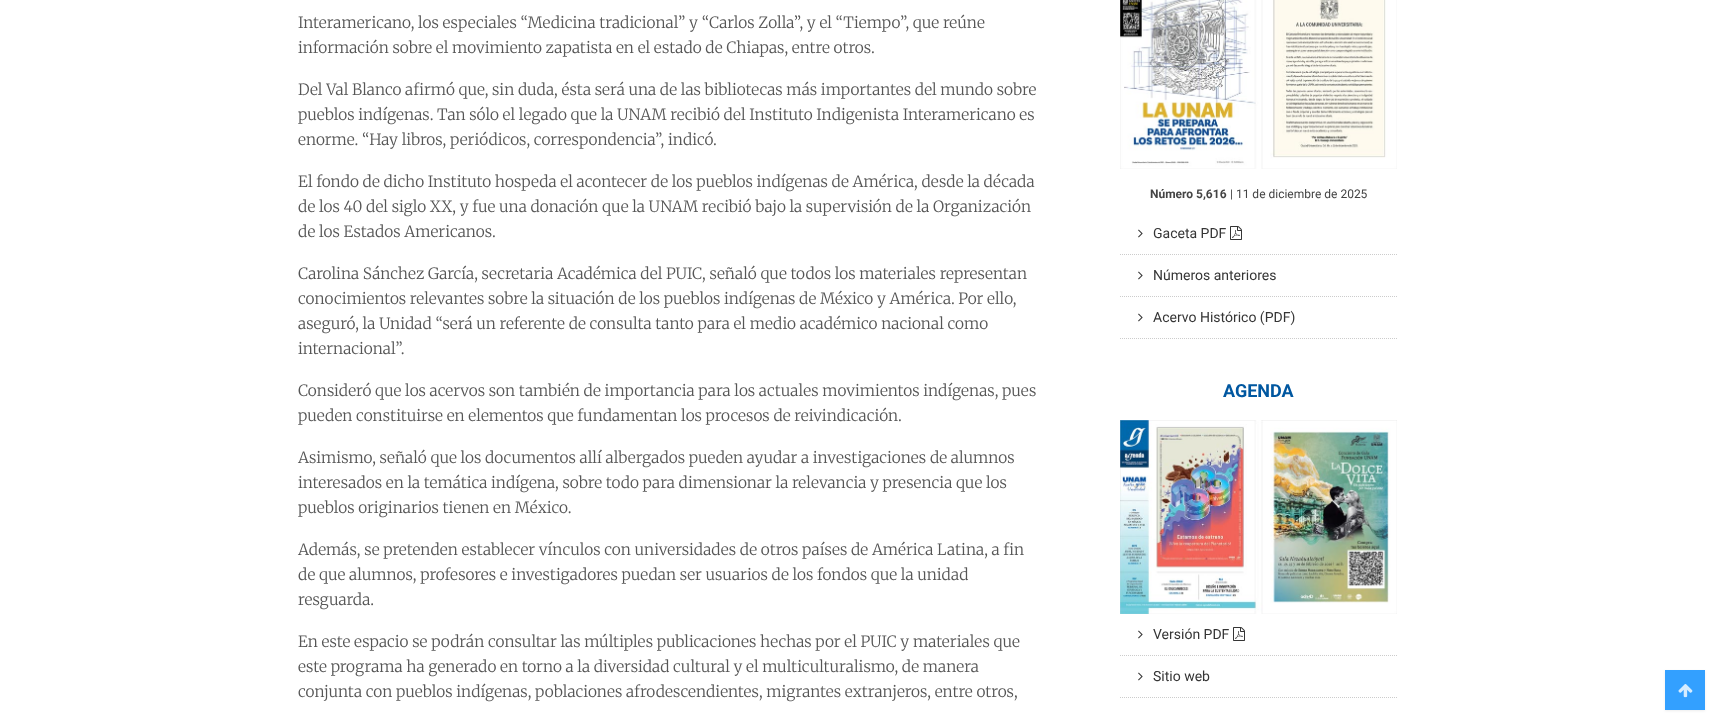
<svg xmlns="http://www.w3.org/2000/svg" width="1715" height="718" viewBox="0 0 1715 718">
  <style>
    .t1 { font: 300 15.5px Merriweather; fill: #565656; }
    .t2 { font: bold 12px Roboto; fill: #444; }
    .t3 { font: 12px Roboto; fill: #444; }
    .t4 { font: 14px Roboto; fill: #353535; }
    .t5 { font: bold 18px Roboto; fill: #0057a0; }
  </style>
  <rect width="100%" height="100%" fill="#fff"/>
  <text x="298" y="28" class="t1">Interamericano, los especiales “Medicina tradicional” y “Carlos Zolla”, y el “Tiempo”, que reúne</text>
  <text x="298" y="53" class="t1">información sobre el movimiento zapatista en el estado de Chiapas, entre otros.</text>
  <text x="298" y="95" class="t1">Del Val Blanco afirmó que, sin duda, ésta será una de las bibliotecas más importantes del mundo sobre</text>
  <text x="298" y="120" class="t1">pueblos indígenas. Tan sólo el legado que la UNAM recibió del Instituto Indigenista Interamericano es</text>
  <text x="298" y="145" class="t1">enorme. “Hay libros, periódicos, correspondencia”, indicó.</text>
  <text x="298" y="187" class="t1">El fondo de dicho Instituto hospeda el acontecer de los pueblos indígenas de América, desde la década</text>
  <text x="298" y="212" class="t1">de los 40 del siglo XX, y fue una donación que la UNAM recibió bajo la supervisión de la Organización</text>
  <text x="298" y="237" class="t1">de los Estados Americanos.</text>
  <text x="298" y="279" class="t1">Carolina Sánchez García, secretaria Académica del PUIC, señaló que todos los materiales representan</text>
  <text x="298" y="304" class="t1">conocimientos relevantes sobre la situación de los pueblos indígenas de México y América. Por ello,</text>
  <text x="298" y="329" class="t1">aseguró, la Unidad “será un referente de consulta tanto para el medio académico nacional como</text>
  <text x="298" y="354" class="t1">internacional”.</text>
  <text x="298" y="396" class="t1">Consideró que los acervos son también de importancia para los actuales movimientos indígenas, pues</text>
  <text x="298" y="421" class="t1">pueden constituirse en elementos que fundamentan los procesos de reivindicación.</text>
  <text x="298" y="463" class="t1">Asimismo, señaló que los documentos allí albergados pueden ayudar a investigaciones de alumnos</text>
  <text x="298" y="488" class="t1">interesados en la temática indígena, sobre todo para dimensionar la relevancia y presencia que los</text>
  <text x="298" y="513" class="t1">pueblos originarios tienen en México.</text>
  <text x="298" y="555" class="t1">Además, se pretenden establecer vínculos con universidades de otros países de América Latina, a fin</text>
  <text x="298" y="580" class="t1">de que alumnos, profesores e investigadores puedan ser usuarios de los fondos que la unidad</text>
  <text x="298" y="605" class="t1">resguarda.</text>
  <text x="298" y="647" class="t1">En este espacio se podrán consultar las múltiples publicaciones hechas por el PUIC y materiales que</text>
  <text x="298" y="672" class="t1">este programa ha generado en torno a la diversidad cultural y el multiculturalismo, de manera</text>
  <text x="298" y="697" class="t1">conjunta con pueblos indígenas, poblaciones afrodescendientes, migrantes extranjeros, entre otros,</text>
  <image x="1120" y="0" width="277" height="169" href="images/1.png"/>
  <text x="1150" y="198" class="t2">Número 5,616</text>
  <text x="1230" y="198" class="t3">| 11 de diciembre de 2025</text>
  <path d="M1120 254.5H1397" fill="none" stroke="#ccc" stroke-dasharray="1 1"/>
  <image x="1138" y="229" width="5" height="9" href="images/2.png"/>
  <text x="1153" y="238" class="t4">Gaceta PDF</text>
  <image x="1230" y="226" width="12" height="14" href="images/3.png"/>
  <path d="M1120 296.5H1397" fill="none" stroke="#ccc" stroke-dasharray="1 1"/>
  <image x="1138" y="271" width="5" height="9" href="images/2.png"/>
  <text x="1153" y="280" class="t4">Números anteriores</text>
  <path d="M1120 338.5H1397" fill="none" stroke="#ccc" stroke-dasharray="1 1"/>
  <image x="1138" y="313" width="5" height="9" href="images/2.png"/>
  <text x="1153" y="322" class="t4">Acervo Histórico (PDF)</text>
  <text x="1223" y="397" class="t5">AGENDA</text>
  <image x="1120" y="420" width="277" height="194" href="images/4.png"/>
  <path d="M1120 655.5H1397" fill="none" stroke="#ccc" stroke-dasharray="1 1"/>
  <image x="1138" y="630" width="5" height="9" href="images/2.png"/>
  <text x="1153" y="639" class="t4">Versión PDF</text>
  <image x="1233" y="627" width="12" height="14" href="images/3.png"/>
  <path d="M1120 697.5H1397" fill="none" stroke="#ccc" stroke-dasharray="1 1"/>
  <image x="1138" y="672" width="5" height="9" href="images/2.png"/>
  <text x="1153" y="681" class="t4">Sitio web</text>
  <rect x="1665" y="671" width="40" height="40" fill="#33333317" filter="blur(1px)"/>
  <rect x="1665" y="670" width="40" height="40" fill="#33a0ff"/>
  <image x="1678" y="684" width="15" height="14" href="images/5.png"/>
</svg>
